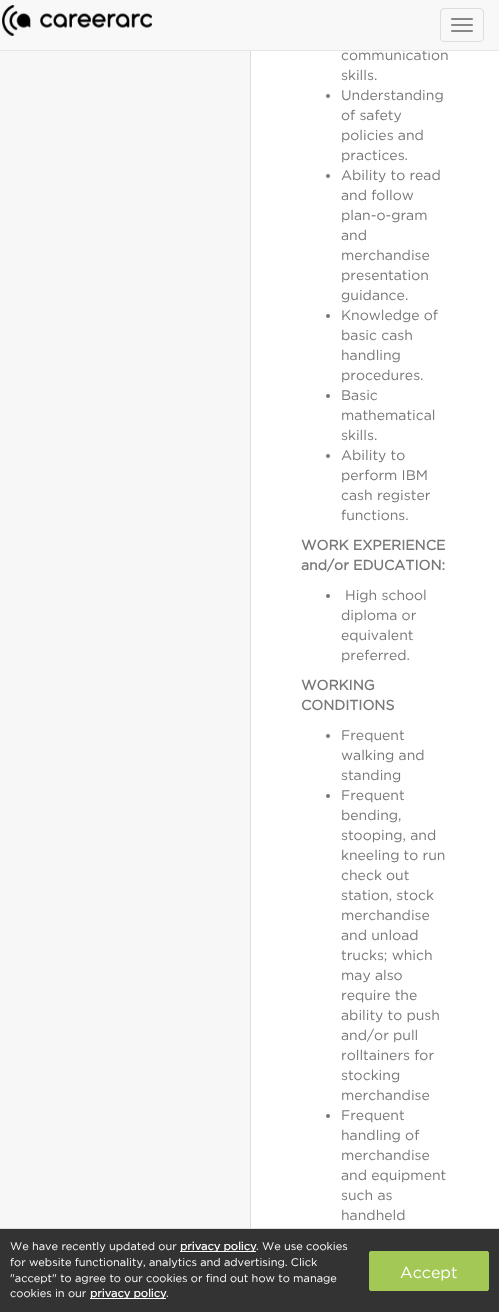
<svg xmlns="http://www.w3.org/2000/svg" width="499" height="1312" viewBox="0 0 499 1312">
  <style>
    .t1 { font: 14px Gotham; fill: #777; }
    .t2 { font: bold 14px Gotham; fill: #777; }
    .t3 { font: 11px Gotham; fill: #fff; }
    .t4 { font: bold 11px Gotham; fill: #fff; }
    .t5 { font: 16px Gotham; fill: #fff; }
  </style>
  <rect width="100%" height="100%" fill="#fff"/>
  <rect x="0" y="0" width="499" height="50" fill="#f8f8f8"/>
  <text x="341" y="60" class="t1">communication</text>
  <rect x="0" y="50" width="499" height="1" fill="#e7e7e7"/>
  <image x="2" y="5" width="150" height="31" href="images/1.png"/>
  <rect x="440.5" y="8.5" width="43" height="33" rx="3.5" fill="none" stroke="#ddd"/>
  <rect x="451" y="18" width="22" height="2" rx="1" fill="#888"/>
  <rect x="451" y="24" width="22" height="2" rx="1" fill="#888"/>
  <rect x="451" y="30" width="22" height="2" rx="1" fill="#888"/>
  <rect x="0" y="51" width="250" height="1177" fill="#f7f7f7"/>
  <rect x="250" y="51" width="1" height="1177" fill="#ddd"/>
  <text x="341" y="80" class="t1">skills.</text>
  <circle cx="328" cy="96" r="2" fill="#777"/>
  <text x="341" y="100" class="t1">Understanding</text>
  <text x="341" y="120" class="t1">of safety</text>
  <text x="341" y="140" class="t1">policies and</text>
  <text x="341" y="160" class="t1">practices.</text>
  <circle cx="328" cy="176" r="2" fill="#777"/>
  <text x="341" y="180" class="t1">Ability to read</text>
  <text x="341" y="200" class="t1">and follow</text>
  <text x="341" y="220" class="t1">plan-o-gram</text>
  <text x="341" y="240" class="t1">and</text>
  <text x="341" y="260" class="t1">merchandise</text>
  <text x="341" y="280" class="t1">presentation</text>
  <text x="341" y="300" class="t1">guidance.</text>
  <circle cx="328" cy="316" r="2" fill="#777"/>
  <text x="341" y="320" class="t1">Knowledge of</text>
  <text x="341" y="340" class="t1">basic cash</text>
  <text x="341" y="360" class="t1">handling</text>
  <text x="341" y="380" class="t1">procedures.</text>
  <circle cx="328" cy="396" r="2" fill="#777"/>
  <text x="341" y="400" class="t1">Basic</text>
  <text x="341" y="420" class="t1">mathematical</text>
  <text x="341" y="440" class="t1">skills.</text>
  <circle cx="328" cy="456" r="2" fill="#777"/>
  <text x="341" y="460" class="t1">Ability to</text>
  <text x="341" y="480" class="t1">perform IBM</text>
  <text x="341" y="500" class="t1">cash register</text>
  <text x="341" y="520" class="t1">functions.</text>
  <text x="301" y="550" class="t2">WORK EXPERIENCE</text>
  <text x="301" y="570" class="t2">and/or EDUCATION:</text>
  <circle cx="328" cy="596" r="2" fill="#777"/>
  <text x="345" y="600" class="t1">High school</text>
  <text x="341" y="620" class="t1">diploma or</text>
  <text x="341" y="640" class="t1">equivalent</text>
  <text x="341" y="660" class="t1">preferred.</text>
  <text x="301" y="690" class="t2">WORKING</text>
  <text x="301" y="710" class="t2">CONDITIONS</text>
  <circle cx="328" cy="736" r="2" fill="#777"/>
  <text x="341" y="740" class="t1">Frequent</text>
  <text x="341" y="760" class="t1">walking and</text>
  <text x="341" y="780" class="t1">standing</text>
  <circle cx="328" cy="796" r="2" fill="#777"/>
  <text x="341" y="800" class="t1">Frequent</text>
  <text x="341" y="820" class="t1">bending,</text>
  <text x="341" y="840" class="t1">stooping, and</text>
  <text x="341" y="860" class="t1">kneeling to run</text>
  <text x="341" y="880" class="t1">check out</text>
  <text x="341" y="900" class="t1">station, stock</text>
  <text x="341" y="920" class="t1">merchandise</text>
  <text x="341" y="940" class="t1">and unload</text>
  <text x="341" y="960" class="t1">trucks; which</text>
  <text x="341" y="980" class="t1">may also</text>
  <text x="341" y="1000" class="t1">require the</text>
  <text x="341" y="1020" class="t1">ability to push</text>
  <text x="341" y="1040" class="t1">and/or pull</text>
  <text x="341" y="1060" class="t1">rolltainers for</text>
  <text x="341" y="1080" class="t1">stocking</text>
  <text x="341" y="1100" class="t1">merchandise</text>
  <circle cx="328" cy="1116" r="2" fill="#777"/>
  <text x="341" y="1120" class="t1">Frequent</text>
  <text x="341" y="1140" class="t1">handling of</text>
  <text x="341" y="1160" class="t1">merchandise</text>
  <text x="341" y="1180" class="t1">and equipment</text>
  <text x="341" y="1200" class="t1">such as</text>
  <text x="341" y="1220" class="t1">handheld</text>
  <rect x="0" y="1229" width="499" height="83" fill="#333"/>
  <rect x="0" y="1228" width="499" height="1" fill="#ddd"/>
  <text x="10" y="1250" class="t3">We have recently updated our</text>
  <rect x="180" y="1251" width="76" height="1" fill="#fff"/>
  <text x="180" y="1250" class="t4">privacy policy</text>
  <text x="256" y="1250" class="t3">. We use cookies</text>
  <text x="10" y="1266" class="t3">for website functionality, analytics and advertising. Click</text>
  <text x="10" y="1282" class="t3">"accept" to agree to our cookies or find out how to manage</text>
  <text x="10" y="1297" class="t3">cookies in our</text>
  <rect x="90" y="1298" width="76" height="1" fill="#fff"/>
  <text x="90" y="1297" class="t4">privacy policy</text>
  <text x="166" y="1297" class="t3">.</text>
  <rect x="369.5" y="1251.5" width="119" height="39" rx="1.5" fill="#a3c856" stroke="#a3c856"/>
  <text x="400" y="1278" class="t5">Accept</text>
</svg>
